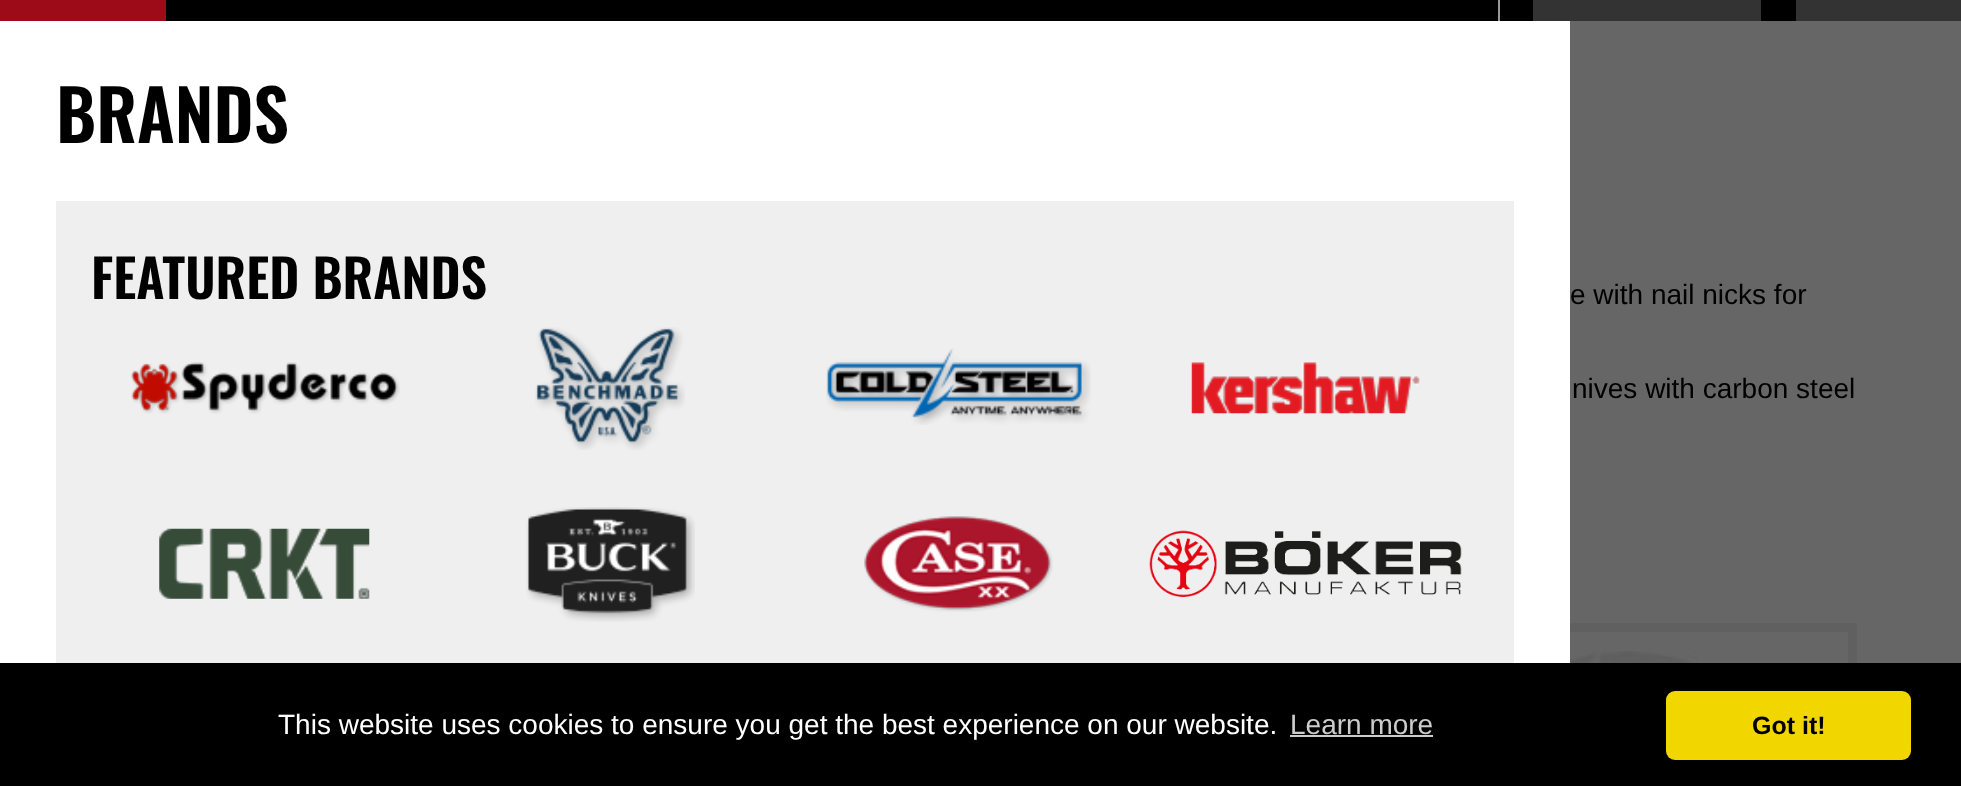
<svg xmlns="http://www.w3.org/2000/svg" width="1961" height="786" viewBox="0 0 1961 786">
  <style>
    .t1 { font: 600 70px Oswald; fill: #000; }
    .t2 { font: 600 52.5px Oswald; fill: #000; }
    .t3 { font: 28px Liberation Sans; fill: #000; }
    .t4 { font: 28px Liberation Sans; fill: #fff; }
    .t5 { font: 28px Liberation Sans; fill: #ccc; }
    .t6 { font: bold 25px Liberation Sans; fill: #000; }
  </style>
  <rect width="100%" height="100%" fill="#666"/>
  <rect x="166" y="0" width="1630" height="21" fill="#000"/>
  <rect x="1498" y="0" width="2" height="21" fill="#999"/>
  <rect x="1533" y="0" width="228" height="21" fill="#333"/>
  <rect x="1796" y="0" width="165" height="21" fill="#333"/>
  <rect x="0" y="0" width="166" height="21" fill="#9d0b19"/>
  <rect x="0" y="21" width="1570" height="642" fill="#fff"/>
  <text x="56" y="143" class="t1">BRANDS</text>
  <rect x="56" y="201" width="1458" height="462" fill="#efefef"/>
  <text x="91" y="299" class="t2">FEATURED BRANDS</text>
  <image x="131" y="362" width="269" height="52" href="images/1.png"/>
  <image x="535" y="327" width="150" height="123" href="images/2.png"/>
  <image x="826" y="348" width="265" height="77" href="images/3.png"/>
  <image x="1191" y="362" width="229" height="52" href="images/4.png"/>
  <image x="159" y="528" width="211" height="71" href="images/5.png"/>
  <image x="526" y="507" width="169" height="115" href="images/6.png"/>
  <image x="864" y="516" width="189" height="96" href="images/7.png"/>
  <image x="1149" y="530" width="313" height="67" href="images/8.png"/>
  <text x="1570" y="304" class="t3">e with nail nicks for</text>
  <text x="1572" y="398" class="t3">nives with carbon steel</text>
  <rect x="1570" y="623" width="287" height="40" fill="#606060"/>
  <rect x="1570" y="632" width="278" height="31" fill="#666"/>
  <image x="1570" y="651" width="244" height="12" href="images/9.png"/>
  <rect x="0" y="663" width="1961" height="123" fill="#000"/>
  <text x="278" y="734" class="t4">This website uses cookies to ensure you get the best experience on our website.</text>
  <text x="1290" y="734" class="t5">Learn more</text>
  <rect x="1290" y="735" width="143" height="2" fill="#ccc"/>
  <rect x="1666" y="691" width="245" height="69" rx="9" fill="#f1d600"/>
  <text x="1752" y="734" class="t6">Got it!</text>
</svg>
